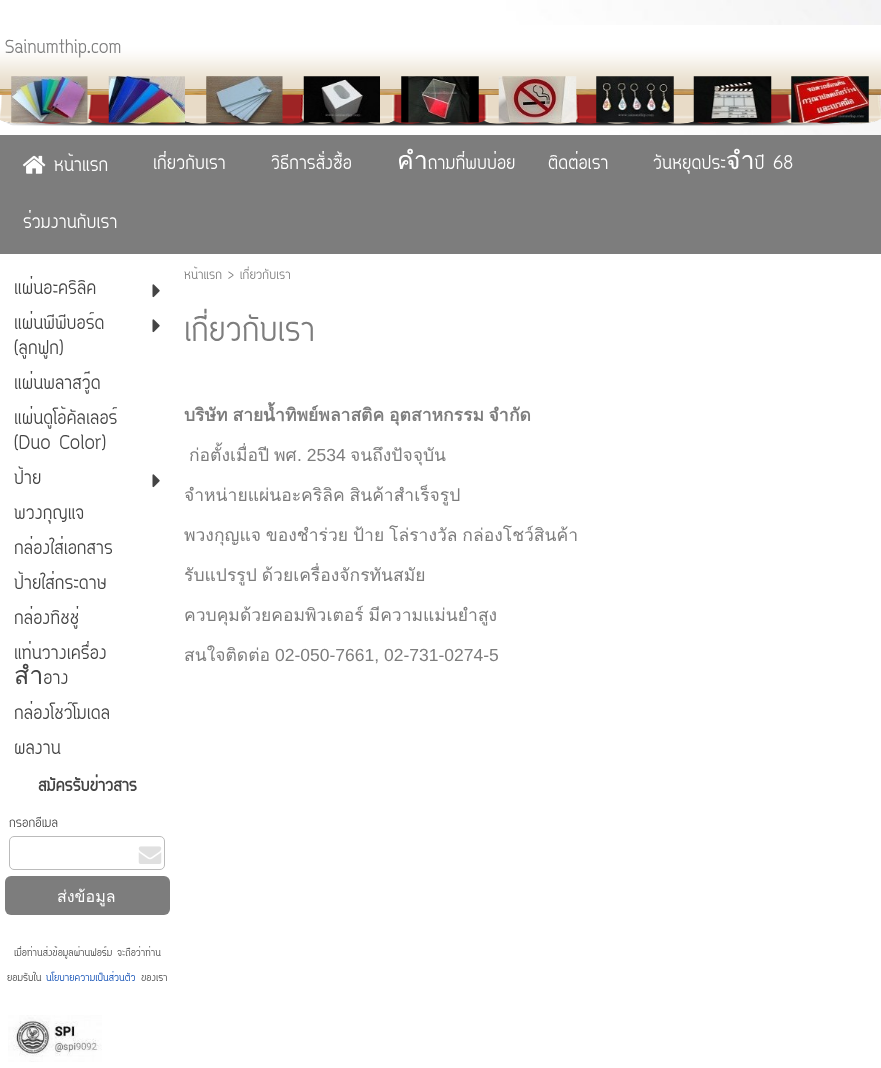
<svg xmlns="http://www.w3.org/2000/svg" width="881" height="1068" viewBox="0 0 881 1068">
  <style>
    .t1 { font: 23.5px Circular; fill: #7d7d7d; }
    .t2 { font: 25px Circular; fill: #fff; }
    .t3 { font: 17.5px Circular; fill: #7d7d7d; }
    .t4 { font: 25px Circular; fill: #444; }
    .t5 { font: bold 22.5px Circular; fill: #444; }
    .t6 { font: 17.5px Circular; fill: #444; }
    .t7 { font: 16px Loma; fill: #fff; }
    .t8 { font: 14px Circular; fill: #444; }
    .t9 { font: 14px Circular; fill: #0044b0; }
    .t10 { font: 45px Circular; fill: #7d7d7d; }
    .t11 { font: bold 17.5px Loma; fill: #7d7d7d; }
    .t12 { font: 17.5px Loma; fill: #7d7d7d; }
    .t13 { font: 17.5px Liberation Sans; fill: #7d7d7d; }
  </style>
  <rect width="100%" height="100%" fill="#fff"/>
  <image x="0" y="0" width="881" height="135" href="images/1.png"/>
  <image x="0" y="25" width="881" height="101" href="images/2.png"/>
  <text x="5" y="53" class="t1">Sainumthip.com</text>
  <image x="11" y="76" width="77" height="47" href="images/3.png"/>
  <image x="108" y="76" width="77" height="47" href="images/4.png"/>
  <image x="206" y="76" width="77" height="47" href="images/5.png"/>
  <image x="303" y="76" width="77" height="47" href="images/6.png"/>
  <image x="401" y="76" width="78" height="47" href="images/7.png"/>
  <image x="498" y="76" width="79" height="47" href="images/8.png"/>
  <image x="596" y="76" width="78" height="47" href="images/9.png"/>
  <image x="693" y="76" width="79" height="47" href="images/10.png"/>
  <image x="791" y="76" width="78" height="47" href="images/11.png"/>
  <rect x="0" y="135" width="881" height="119" fill="#7d7d7d"/>
  <image x="22" y="155" width="24" height="19" href="images/12.png"/>
  <text x="54" y="171" class="t2">หน้าแรก</text>
  <text x="153" y="169" class="t2">เกี่ยวกับเรา</text>
  <text x="271" y="169" class="t2">วิธีการสั่งซื้อ</text>
  <text x="397" y="169" class="t2">คำถามที่พบบ่อย</text>
  <text x="548" y="169" class="t2">ติดต่อเรา</text>
  <text x="653" y="169" class="t2">วันหยุดประจำปี 68</text>
  <text x="23" y="228" class="t2">ร่วมงานกับเรา</text>
  <text x="184" y="279" class="t3">หน้าแรก &gt; เกี่ยวกับเรา</text>
  <text x="14" y="294" class="t4">แผ่นอะคริลิค</text>
  <image x="152" y="284" width="8" height="14" href="images/13.png"/>
  <text x="14" y="329" class="t4">แผ่นพีพีบอร์ด</text>
  <text x="14" y="354" class="t4">(ลูกฟูก)</text>
  <image x="152" y="319" width="8" height="14" href="images/13.png"/>
  <text x="14" y="389" class="t4">แผ่นพลาสวู๊ด</text>
  <text x="14" y="424" class="t4">แผ่นดูโอ้คัลเลอร์</text>
  <text x="14" y="449" class="t4">(Duo Color)</text>
  <text x="14" y="484" class="t4">ป้าย</text>
  <image x="152" y="474" width="8" height="14" href="images/13.png"/>
  <text x="14" y="519" class="t4">พวงกุญแจ</text>
  <text x="14" y="554" class="t4">กล่องใส่เอกสาร</text>
  <text x="14" y="589" class="t4">ป้ายใส่กระดาษ</text>
  <text x="14" y="624" class="t4">กล่องทิชชู่</text>
  <text x="14" y="659" class="t4">แท่นวางเครื่อง</text>
  <text x="14" y="684" class="t4">สำอาง</text>
  <text x="14" y="719" class="t4">กล่องโชว์โมเดล</text>
  <text x="14" y="754" class="t4">ผลงาน</text>
  <text x="38" y="791" class="t5">สมัครรับข่าวสาร</text>
  <text x="9" y="827" class="t6">กรอกอีเมล</text>
  <rect x="9.5" y="836.5" width="155" height="33" rx="4.5" fill="none" stroke="#bbb"/>
  <image x="138" y="846" width="24" height="18" href="images/14.png"/>
  <rect x="5" y="876" width="165" height="39" rx="6" fill="#7d7d7d"/>
  <text x="57" y="902" class="t7">ส่งข้อมูล</text>
  <text x="14" y="956" class="t8">เมื่อท่านส่งข้อมูลผ่านฟอร์ม จะถือว่าท่าน</text>
  <text x="7" y="981" class="t8">ยอมรับใน</text>
  <text x="46" y="981" class="t9">นโยบายความเป็นส่วนตัว</text>
  <text x="141" y="981" class="t8">ของเรา</text>
  <image x="8" y="1015" width="94" height="47" href="images/15.png"/>
  <text x="184" y="341" class="t10">เกี่ยวกับเรา</text>
  <text x="184" y="421" word-spacing="-1" class="t11">บริษัท สายน้ำทิพย์พลาสติค อุตสาหกรรม จำกัด</text>
  <text x="189" y="461" class="t12">ก่อตั้งเมื่อปี</text>
  <text x="274" y="461" class="t12">พศ</text>
  <text x="297" y="461" class="t13">. 2534</text>
  <text x="350" y="461" class="t12">จนถึงปัจจุบัน</text>
  <text x="184" y="501" word-spacing="-1" class="t12">จำหน่ายแผ่นอะคริลิค สินค้าสำเร็จรูป</text>
  <text x="184" y="541" word-spacing="-1" class="t12">พวงกุญแจ ของชำร่วย ป้าย โล่รางวัล กล่องโชว์สินค้า</text>
  <text x="184" y="581" word-spacing="-1" class="t12">รับแปรรูป ด้วยเครื่องจักรทันสมัย</text>
  <text x="184" y="621" word-spacing="-1" class="t12">ควบคุมด้วยคอมพิวเตอร์ มีความแม่นยำสูง</text>
  <text x="184" y="661" class="t12">สนใจติดต่อ</text>
  <text x="275" y="661" class="t13">02-050-7661, 02-731-0274-5</text>
</svg>
